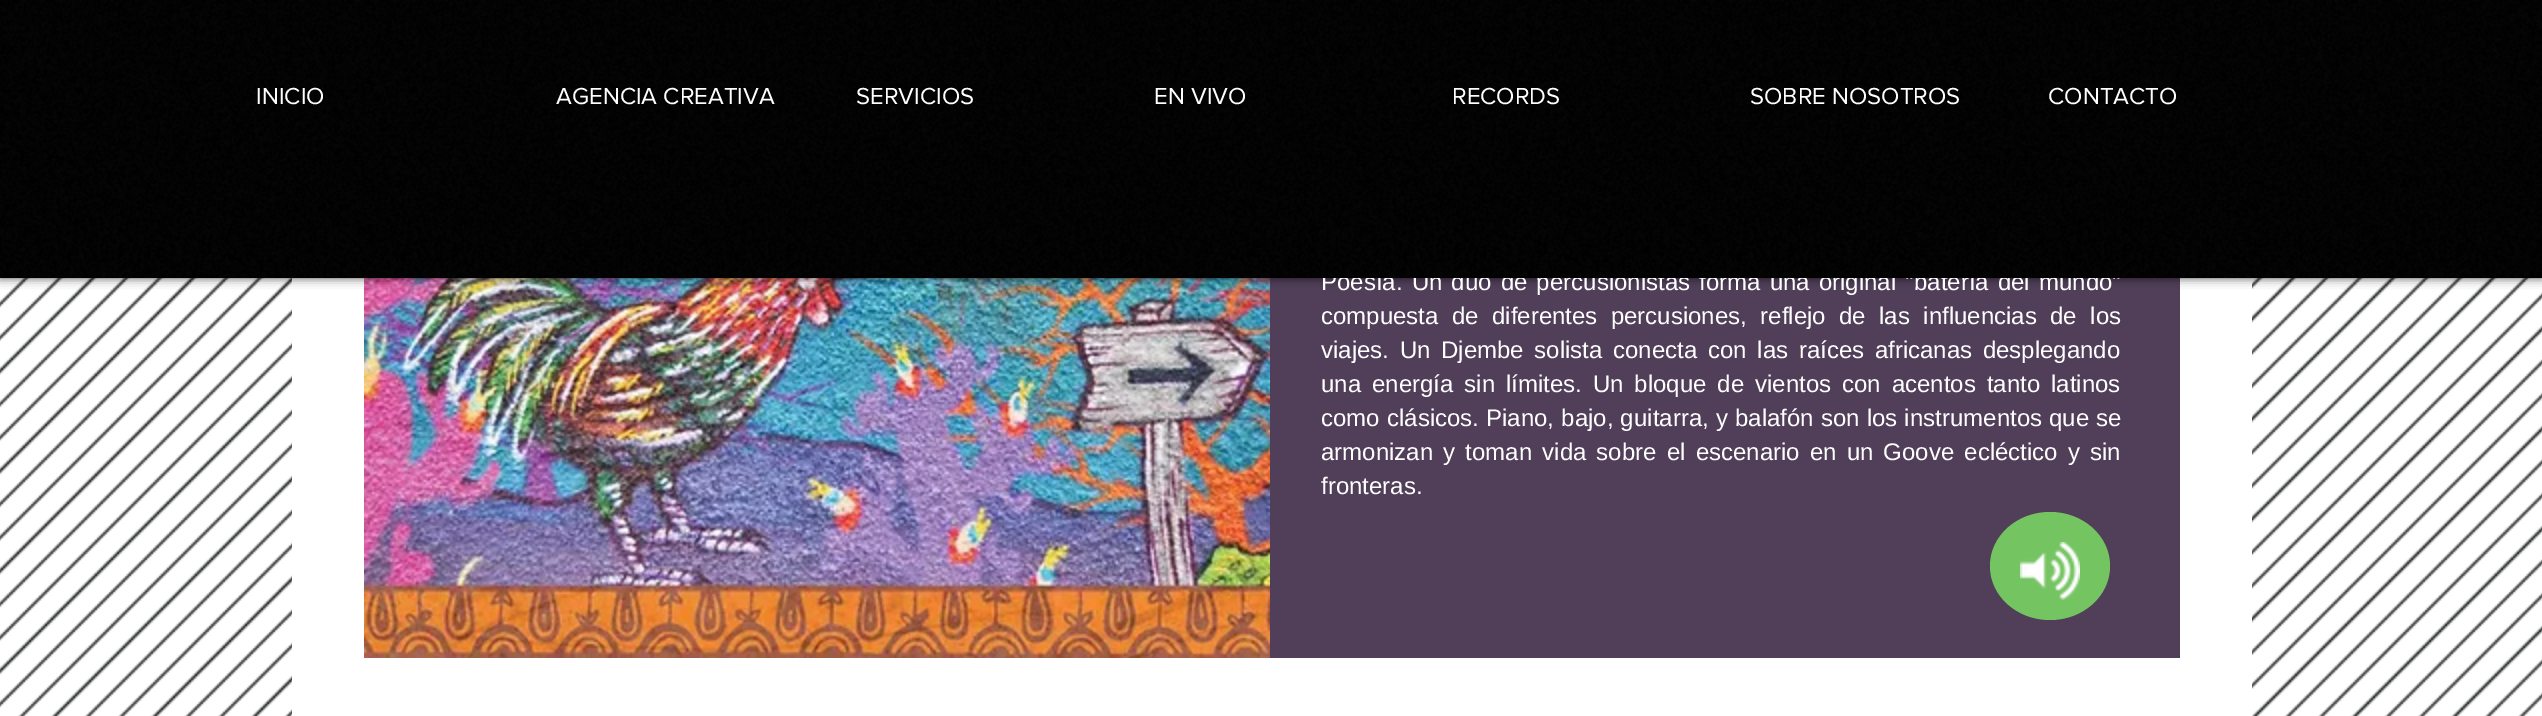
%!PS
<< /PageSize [2542 716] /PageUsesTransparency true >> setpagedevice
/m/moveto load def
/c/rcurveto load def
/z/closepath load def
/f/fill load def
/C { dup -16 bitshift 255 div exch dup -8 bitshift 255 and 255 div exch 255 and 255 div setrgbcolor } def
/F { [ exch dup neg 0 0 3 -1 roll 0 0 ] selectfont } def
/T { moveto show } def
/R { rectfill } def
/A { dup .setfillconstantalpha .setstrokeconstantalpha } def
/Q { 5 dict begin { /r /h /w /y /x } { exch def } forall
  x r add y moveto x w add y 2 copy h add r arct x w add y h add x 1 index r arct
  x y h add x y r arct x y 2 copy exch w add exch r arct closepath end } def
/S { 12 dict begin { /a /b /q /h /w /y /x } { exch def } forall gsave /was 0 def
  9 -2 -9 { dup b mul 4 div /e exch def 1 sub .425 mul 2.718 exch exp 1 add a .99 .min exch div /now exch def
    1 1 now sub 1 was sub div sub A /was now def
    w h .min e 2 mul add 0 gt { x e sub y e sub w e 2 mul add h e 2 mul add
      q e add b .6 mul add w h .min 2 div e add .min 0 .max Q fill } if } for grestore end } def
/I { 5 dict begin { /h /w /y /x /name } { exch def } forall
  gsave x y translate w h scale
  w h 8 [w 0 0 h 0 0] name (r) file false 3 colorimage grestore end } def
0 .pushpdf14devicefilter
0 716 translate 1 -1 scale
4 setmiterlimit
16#FFFFFF C
0 0 2542 716 R
(4.rgb) 0 278 2542 438 I
292 278 1960 438 R
(2.rgb) 364 278 906 380 I
16#513F59 C
1270 278 910 380 R
16#000000 C
0 0 2542 278 0 5 .7 S
/LiberationSans-Regular 24 F
16#FFFFFF C
1321 290 m 2.5 0 32 (Poesía. Un dúo de percusionistas forma una original "batería del mundo") widthshow
16#000000 C
0 0 2542 278 R
(1.rgb) 0 0 2542 278 I
/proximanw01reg-Regular 24 F
16#FFFFFF C
(INICIO) 256 104 T
(AGENCIA CREATIVA) 556 104 T
(SERVICIOS) 856 104 T
(EN VIVO) 1154 104 T
(RECORDS) 1452 104 T
(SOBRE NOSOTROS) 1750 104 T
(CONTACTO) 2048 104 T
/LiberationSans-Regular 24 F
1321 324 m 6.75 0 32 (compuesta de diferentes percusiones, reflejo de las influencias de los) widthshow
1321 358 m 4 0 32 (viajes. Un Djembe solista conecta con las raíces africanas desplegando) widthshow
1321 392 m 4.25 0 32 (una energía sin límites. Un bloque de vientos con acentos tanto latinos) widthshow
1321 426 m .5 0 32 (como clásicos. Piano, bajo, guitarra, y balafón son los instrumentos que se) widthshow
1321 460 m 3.5 0 32 (armonizan y toman vida sobre el escenario en un Goove ecléctico y sin) widthshow
(fronteras.) 1321 494 T
16#75C462 C
2050 512 m 33 0 60 24 60 54 c 0 30 -27 54 -60 54 c -33 0 -60 -24 -60 -54 c 0 -30 27 -54 60 -54 c z f
(3.rgb) 2020 542 60 58 I
.poppdf14devicefilter showpage
